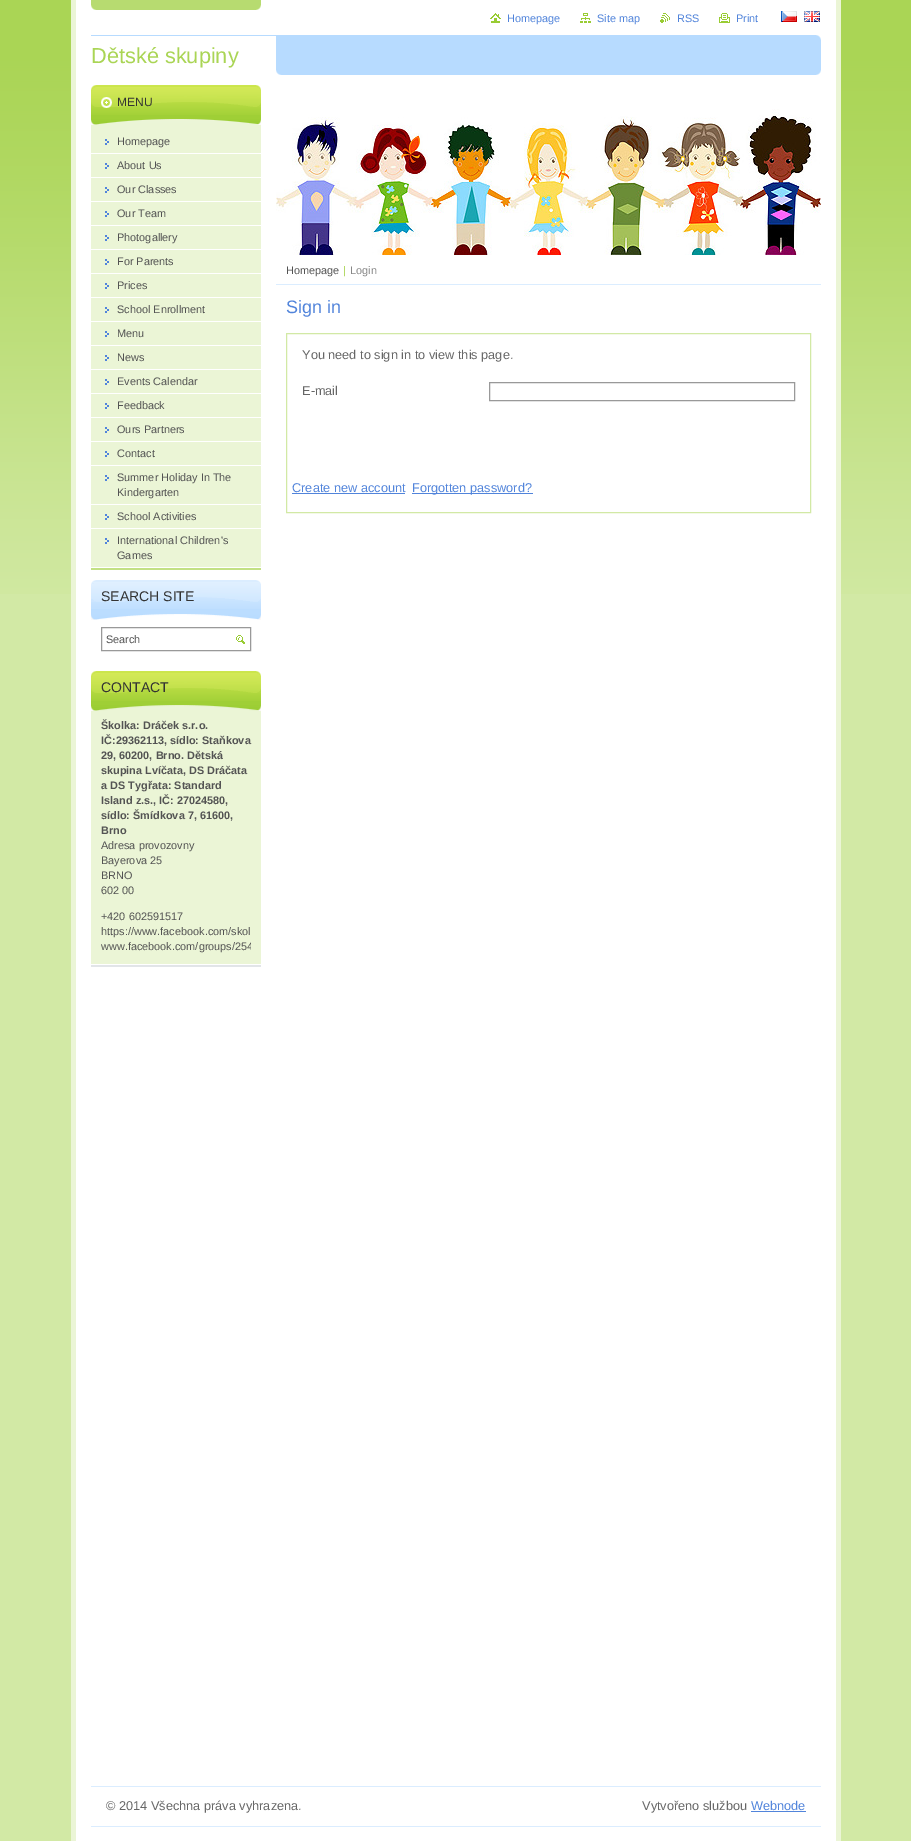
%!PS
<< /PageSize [911 1841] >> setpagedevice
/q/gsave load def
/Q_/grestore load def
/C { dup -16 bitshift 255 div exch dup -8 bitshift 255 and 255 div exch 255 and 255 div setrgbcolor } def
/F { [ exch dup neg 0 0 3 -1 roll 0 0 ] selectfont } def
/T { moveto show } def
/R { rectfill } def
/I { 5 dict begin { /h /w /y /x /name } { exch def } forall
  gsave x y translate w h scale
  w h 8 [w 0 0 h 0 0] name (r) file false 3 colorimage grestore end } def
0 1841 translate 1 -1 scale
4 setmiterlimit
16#D2E9A5 C
0 0 911 1841 R
(1.rgb) 0 0 911 594 I
16#FFFFFF C
76 0 760 1841 R
(2.rgb) 91 0 170 10 I
16#EBF5D6 C
836 0 5 1841 R
71 0 5 1841 R
(3.rgb) 490 13 11 10 I
/LiberationSans-Regular 10.9 F
16#5184DB C
(Homepage) 507 22 T
(4.rgb) 580 13 11 10 I
(Site map) 597 22 T
(5.rgb) 660 13 10 10 I
(RSS) 677 22 T
(6.rgb) 719 13 11 10 I
(Print) 736 22 T
(7.rgb) 781 11 16 11 I
(8.rgb) 804 11 16 11 I
(9.rgb) 91 35 730 6 I
/LiberationSans-Regular 21.75 F
16#AAD555 C
(Dětské skupiny) 91 63 T
16#B7DBFF C
276 41 545 29 R
(10.rgb) 276 70 545 5 I
16#C2E084 C
91 568 170 2 R
16#EBF5D6 C
91 125 170 442 R
16#9FCF36 C
91 115 170 4 R
(11.rgb) 91 85 170 30 I
(12.rgb) 91 119 170 6 I
/LiberationSans-Regular 12 F
16#333333 C
(MENU) 117 106 T
(13.rgb) 105 139 4 6 I
16#FFFFFF C
91 153 170 1 R
/LiberationSans-Regular 10.9 F
16#535353 C
(Homepage) 117 145 T
(13.rgb) 105 163 4 6 I
16#FFFFFF C
91 177 170 1 R
16#535353 C
(About Us) 117 169 T
(13.rgb) 105 187 4 6 I
16#FFFFFF C
91 201 170 1 R
16#535353 C
(Our Classes) 117 193 T
(13.rgb) 105 211 4 6 I
16#FFFFFF C
91 225 170 1 R
16#535353 C
(Our Team) 117 217 T
(13.rgb) 105 235 4 6 I
16#FFFFFF C
91 249 170 1 R
16#535353 C
(Photogallery) 117 241 T
(13.rgb) 105 259 4 6 I
16#FFFFFF C
91 273 170 1 R
16#535353 C
(For Parents) 117 265 T
(13.rgb) 105 283 4 6 I
16#FFFFFF C
91 297 170 1 R
16#535353 C
(Prices) 117 289 T
(13.rgb) 105 307 4 6 I
16#FFFFFF C
91 321 170 1 R
16#535353 C
(School Enrollment) 117 313 T
(13.rgb) 105 331 4 6 I
16#FFFFFF C
91 345 170 1 R
16#535353 C
(Menu) 117 337 T
(13.rgb) 105 355 4 6 I
16#FFFFFF C
91 369 170 1 R
16#535353 C
(News) 117 361 T
(13.rgb) 105 379 4 6 I
16#FFFFFF C
91 393 170 1 R
16#535353 C
(Events Calendar) 117 385 T
(13.rgb) 105 403 4 6 I
16#FFFFFF C
91 417 170 1 R
16#535353 C
(Feedback) 117 409 T
(13.rgb) 105 427 4 6 I
16#FFFFFF C
91 441 170 1 R
16#535353 C
(Ours Partners) 117 433 T
(13.rgb) 105 451 4 6 I
16#FFFFFF C
91 465 170 1 R
16#535353 C
(Contact) 117 457 T
(13.rgb) 105 475 4 6 I
16#FFFFFF C
91 504 170 1 R
16#535353 C
(Summer Holiday In The) 117 481 T
(Kindergarten) 117 496 T
(13.rgb) 105 514 4 6 I
16#FFFFFF C
91 528 170 1 R
16#535353 C
(School Activities) 117 520 T
(13.rgb) 105 538 4 6 I
(International Children's) 117 544 T
(Games) 117 559 T
16#BBDDFF C
91 609 170 6 R
(14.rgb) 91 580 170 29 I
(15.rgb) 91 614 170 6 I
/LiberationSans-Regular 14 F
16#333333 C
(SEARCH SITE) 101 601 T
16#999999 C
101.5 627.5 149 23 rectstroke
/LiberationSans-Regular 10.9 F
16#535353 C
(Search) 106 643 T
(16.rgb) 236 635 9 9 I
16#E2E5E8 C
91 965 170 2 R
16#EBF5D6 C
91 711 170 253 R
16#9FCF36 C
91 701 170 5 R
(17.rgb) 91 671 170 30 I
(18.rgb) 91 705 170 6 I
/LiberationSans-Regular 14 F
16#333333 C
(CONTACT) 101 692 T
/LiberationSans-Bold 10.9 F
16#535353 C
(Školka: Dráček s.r.o.) 101 729 T
(IČ:29362113, sídlo: Staňkova) 101 744 T
(29, 60200, Brno. Dětská) 101 759 T
(skupina Lvíčata, DS Dráčata) 101 774 T
(a DS Tygřata: Standard) 101 789 T
(Island z.s., IČ: 27024580,) 101 804 T
(sídlo: Šmídkova 7, 61600,) 101 819 T
(Brno) 101 834 T
/LiberationSans-Regular 10.9 F
(Adresa provozovny) 101 849 T
(Bayerova 25) 101 864 T
(BRNO) 101 879 T
(602 00) 101 894 T
(+420 602591517) 101 920 T
(https://www.facebook.com/skol) 101 935 T
q
101 718 150 236 rectclip
(www.facebook.com/groups/254) 101 950 T
Q_
(19.rgb) 276 109 545 146 I
16#DBEDFF C
276 284 545 1 R
16#535353 C
(Homepage) 286 274 T
16#99CC33 C
(|) 343 274 T
16#878787 C
(Login) 350 274 T
/LiberationSans-Regular 18 F
16#5184DB C
(Sign in) 286 313 T
16#D2E9A5 C
286.5 333.5 524 179 rectstroke
/LiberationSans-Regular 12.75 F
16#666666 C
(You need to sign in to view this page.) 302 359 T
(E-mail) 302 395 T
16#999999 C
489.5 382.5 305 18 rectstroke
16#5184DB C
(Create new account) 292 492 T
292 493 113 1 R
412 493 121 1 R
(Forgotten password?) 412 492 T
16#DBEDFF C
91 1786 730 1 R
91 1826 730 1 R
16#666666 C
(© 2014 Všechna práva vyhrazena.) 106 1810 T
(Vytvořeno službou) 642 1810 T
16#5184DB C
(Webnode) 751 1810 T
751 1811 55 1 R
showpage
